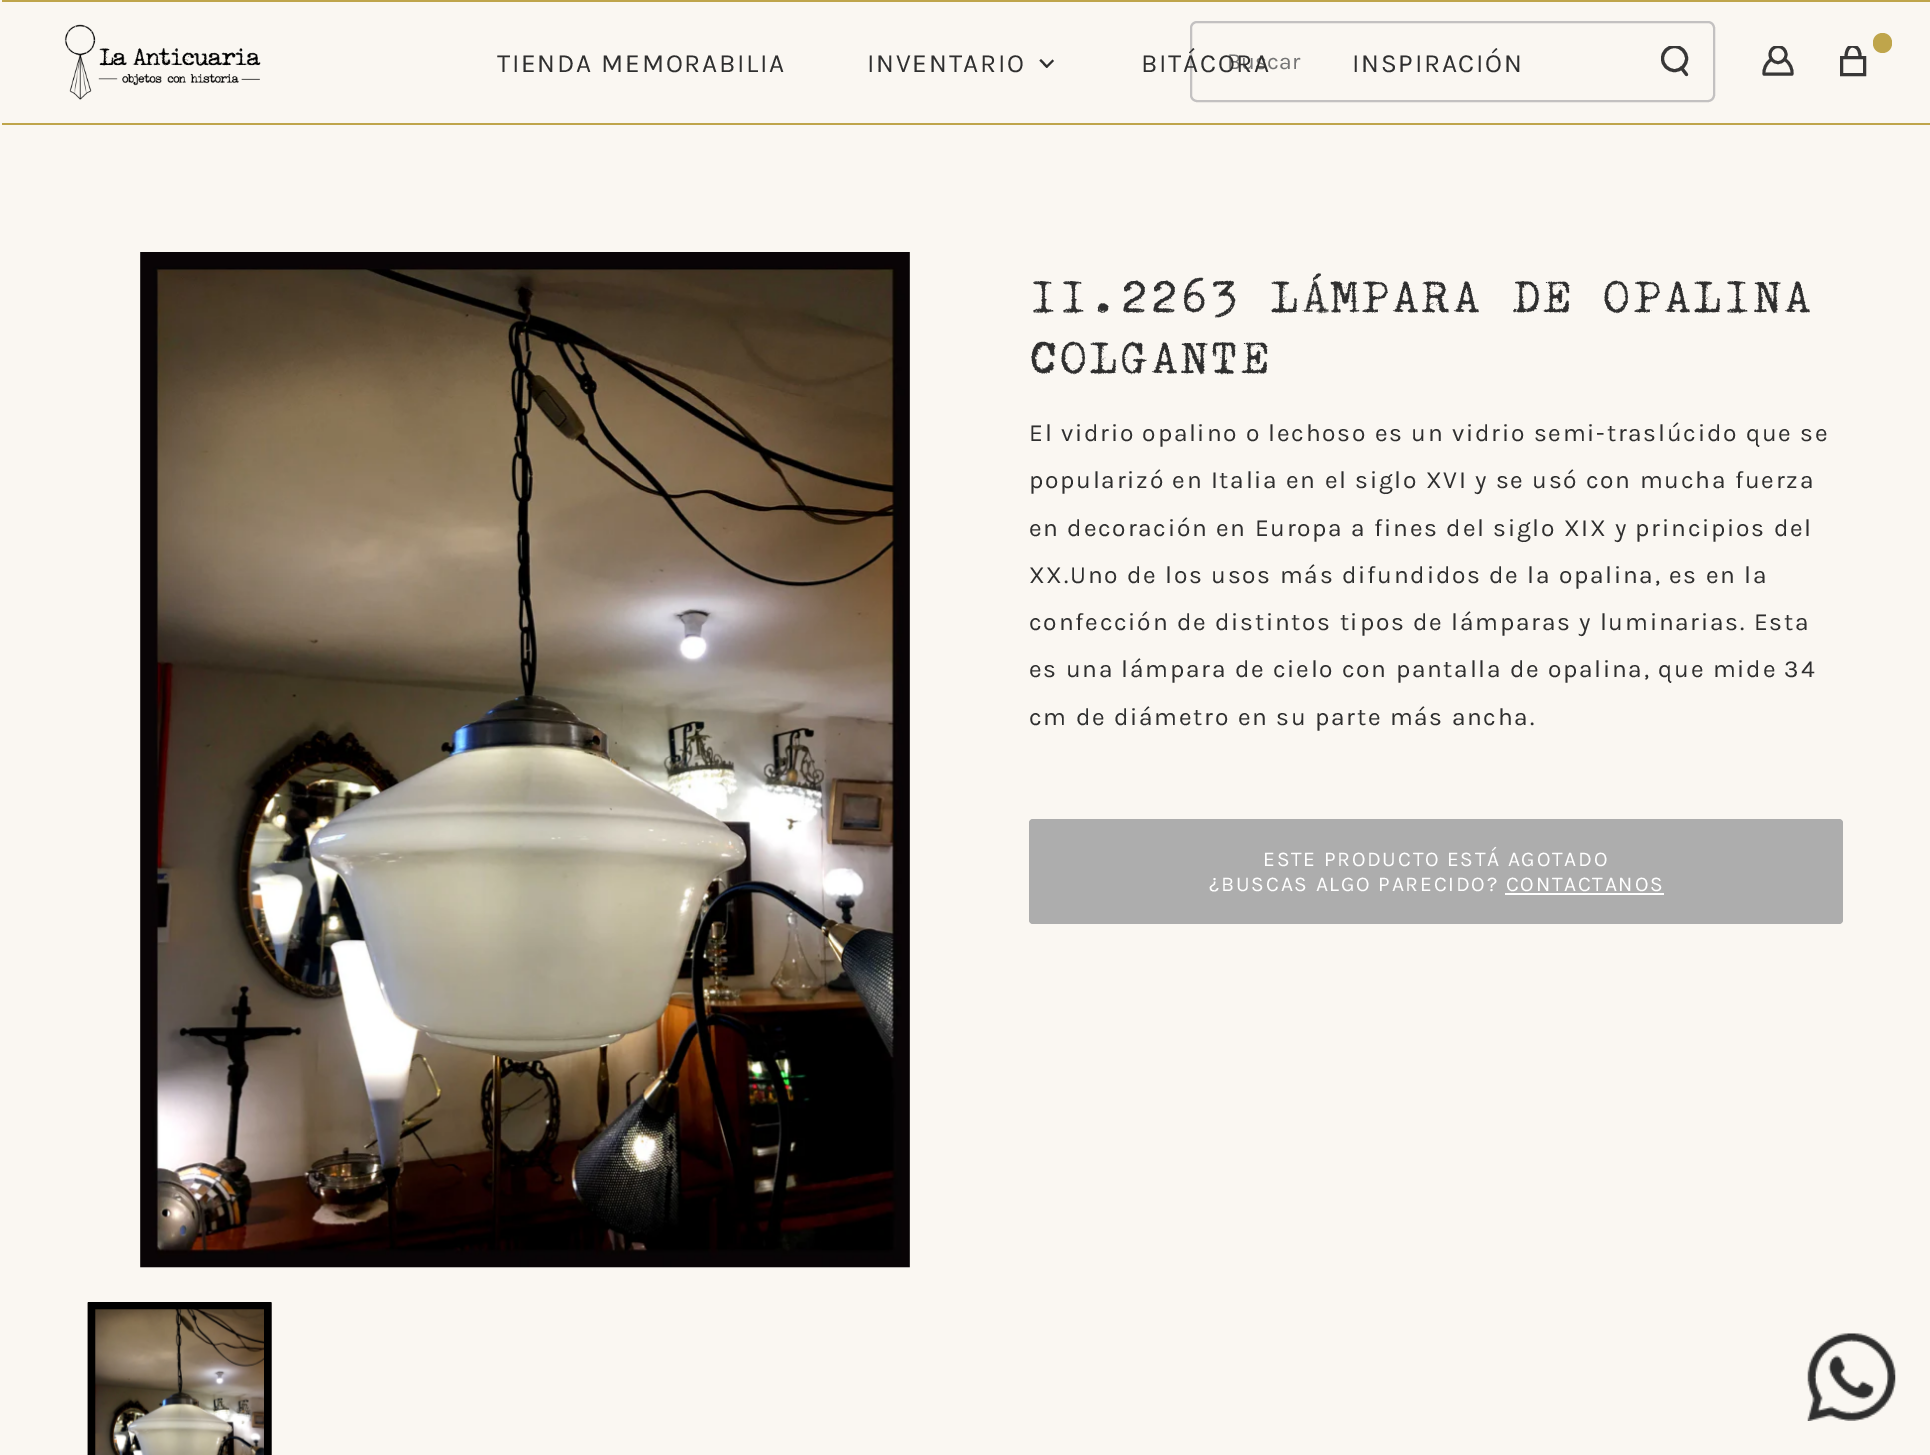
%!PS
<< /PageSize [1930 1455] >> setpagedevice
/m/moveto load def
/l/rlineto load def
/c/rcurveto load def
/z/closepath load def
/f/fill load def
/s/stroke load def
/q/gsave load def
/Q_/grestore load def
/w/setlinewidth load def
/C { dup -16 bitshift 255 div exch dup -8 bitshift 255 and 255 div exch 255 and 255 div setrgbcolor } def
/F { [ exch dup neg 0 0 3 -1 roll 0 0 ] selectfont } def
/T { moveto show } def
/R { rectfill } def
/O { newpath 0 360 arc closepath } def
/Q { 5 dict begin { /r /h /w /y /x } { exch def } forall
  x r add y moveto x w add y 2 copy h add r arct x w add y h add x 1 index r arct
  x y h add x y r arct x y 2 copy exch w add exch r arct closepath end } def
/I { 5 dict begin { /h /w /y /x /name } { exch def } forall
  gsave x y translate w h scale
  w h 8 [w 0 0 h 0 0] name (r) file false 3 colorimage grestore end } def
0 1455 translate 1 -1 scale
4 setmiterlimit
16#FAF7F2 C
0 0 1930 1455 R
16#BFA54B C
2 0 1928 2 R
(1.rgb) 64 24 197 76 I
/Karla-Regular 26.25 F
16#2F2F2F C
497 72 m 1.75 0 (TIENDA MEMORABILIA) ashow
867 72 m 1.75 0 (INVENTARIO) ashow
1052.5 59.5 m 1.5 1.5 l -7 7 l -1.5 -1.5 l z f
1041 59 m 7 7.5 l -1.5 1.5 l -7 -7.5 l z f
16#C3C1C1 C
2 w
1191 22 523 79 6 Q s
/Karla-Regular 23 F
16#757575 C
(Buscar) 1227 69 T
/Karla-Regular 26.25 F
16#2F2F2F C
1141 72 m 1.75 0 (BITÁCORA) ashow
1352 72 m 1.75 0 (INSPIRACIÓN) ashow
q
1661 46 28 31 rectclip
16#383737 C
3.1 w
1674.5 58.5 12 O s
Q_
16#383737 C
3.1 w
1 setlinecap
1686.5 74.5 m -5 -6.5 l s
q
1762 46 32 31 rectclip
2.9 w
0 setlinecap
1778 54.5 8 O s
Q_
2.9 w
1 setlinejoin
1770 60.5 m -4 3 -6.5 8.5 -6 13.5 c 28 0 l .5 -5 -2 -10.5 -6 -13.5 c s
16#BFA54B C
1873 33 19 20 9.5 Q f
16#383737 C
3 w
0 setlinecap
0 setlinejoin
1841.5 57.5 23 17 rectstroke
q
1839 46 27 31 rectclip
3.1 w
1 setlinecap
1 setlinejoin
1846 57 m 0 0 0 -11.5 7 -11 c 1 .5 7 .5 7 11 c s
Q_
16#BFA54B C
2 123 1928 2 R
(2.rgb) 140 252 770 1016 I
(3.rgb) 87 1302 185 153 I
16#000000 C
7 w
91.5 1305.5 176 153 rectstroke
/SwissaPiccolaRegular-Regular 43.75 F
16#2F2F2F C
1029 312 m 1.75 0 (II.2263 LÁMPARA DE OPALINA) ashow
1029 373 m 1.75 0 (COLGANTE) ashow
/Karla-Regular 24.5 F
1029 441 m 1.75 0 (El vidrio opalino o lechoso es un vidrio semi-traslúcido que se) ashow
1029 488 m 1.75 0 (popularizó en Italia en el siglo XVI y se usó con mucha fuerza) ashow
1029 536 m 1.75 0 (en decoración en Europa a fines del siglo XIX y principios del) ashow
1029 583 m 1.75 0 (XX.Uno de los usos más difundidos de la opalina, es en la) ashow
1029 630 m 1.75 0 (confección de distintos tipos de lámparas y luminarias. Esta) ashow
1029 677 m 1.75 0 (es una lámpara de cielo con pantalla de opalina, que mide 34) ashow
1029 725 m 1.75 0 (cm de diámetro en su parte más ancha.) ashow
16#ADADAD C
1029 819 814 105 4 Q f
/Karla-Regular 21 F
16#FFFFFF C
1263 866 m 1.75 0 (ESTE PRODUCTO ESTÁ AGOTADO) ashow
1209 891 m 1.75 0 (¿BUSCAS ALGO PARECIDO? CONTACTANOS) ashow
1505 893 159 2 R
(4.rgb) 1807 1333 89 88 I
showpage
